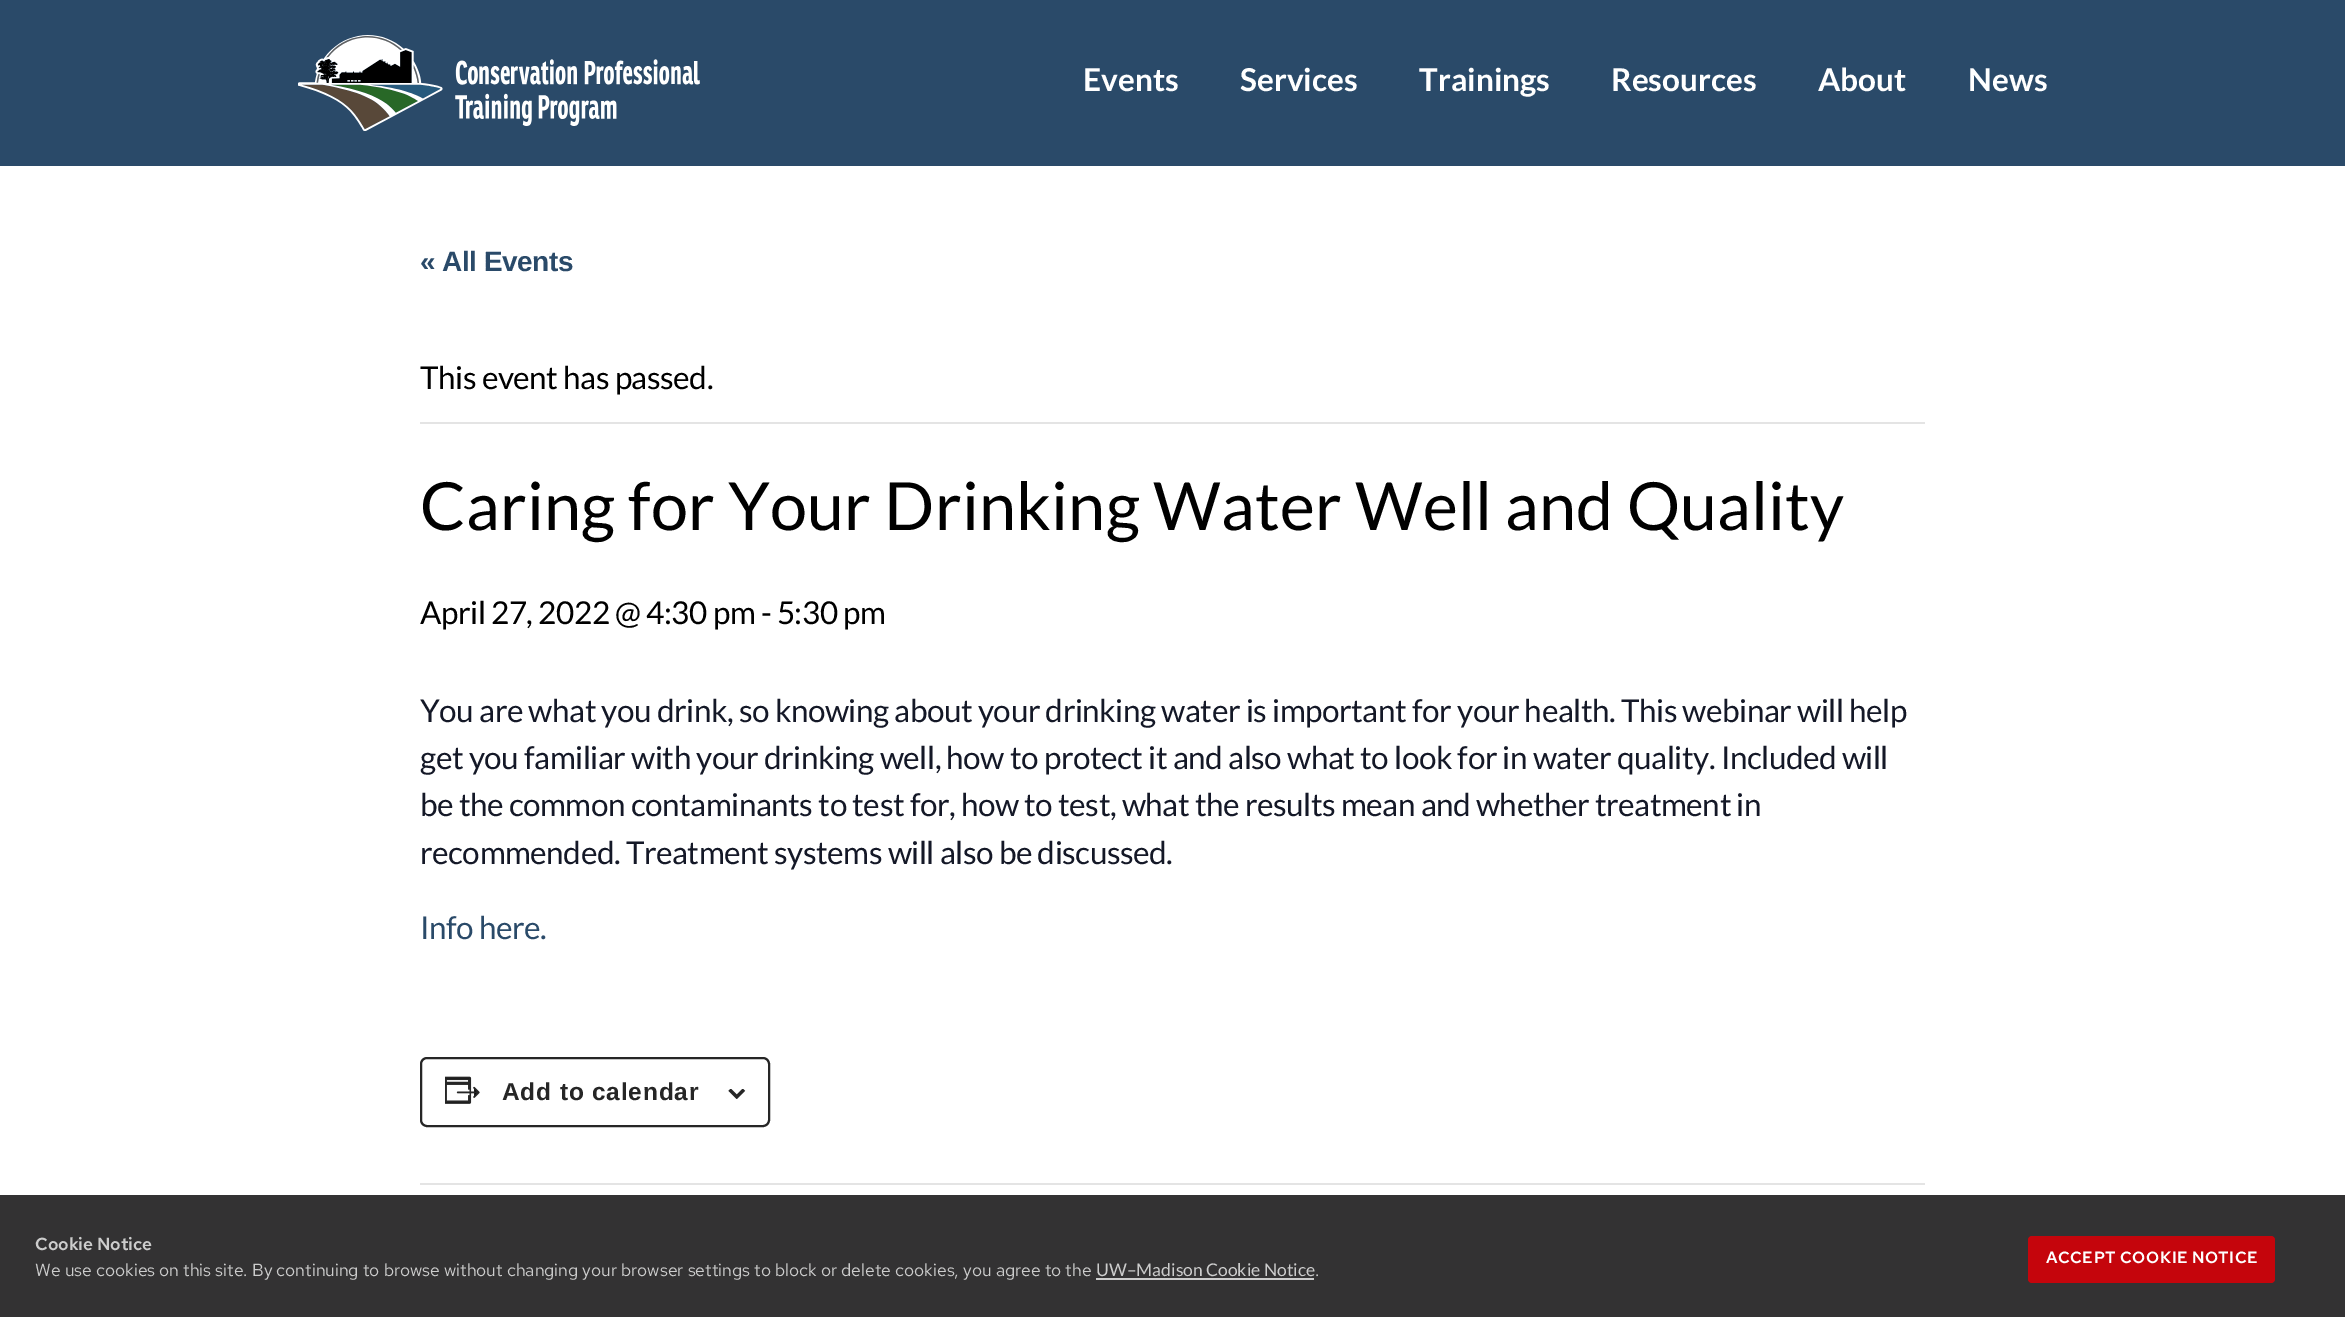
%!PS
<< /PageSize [2345 1317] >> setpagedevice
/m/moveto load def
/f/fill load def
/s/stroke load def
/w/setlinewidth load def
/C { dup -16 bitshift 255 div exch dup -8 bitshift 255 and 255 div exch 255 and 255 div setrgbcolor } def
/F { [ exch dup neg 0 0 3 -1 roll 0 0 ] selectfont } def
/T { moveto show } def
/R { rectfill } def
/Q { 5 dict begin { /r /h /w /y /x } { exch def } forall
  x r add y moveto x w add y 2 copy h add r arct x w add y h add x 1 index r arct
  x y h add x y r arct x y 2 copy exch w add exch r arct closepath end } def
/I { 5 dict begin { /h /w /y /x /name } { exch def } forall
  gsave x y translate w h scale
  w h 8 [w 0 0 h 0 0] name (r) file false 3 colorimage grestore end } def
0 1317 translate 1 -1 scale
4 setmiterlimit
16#FFFFFF C
0 0 2345 1317 R
16#333233 C
0 1195 2345 122 R
16#2A4A69 C
0 0 2345 166 R
(1.rgb) 298 35 402 96 I
/Lato-Bold 31.5 F
16#FFFFFF C
(Events) 1083 91 T
(Services) 1240 91 T
(Trainings) 1419 91 T
(Resources) 1611 91 T
(About) 1818 91 T
(News) 1968 91 T
/LiberationSans-Bold 28 F
16#2A4A69 C
420 271 m -.47 0 (« All Events) ashow
16#E4E4E4 C
420 422 1505 2 R
/Lato-Regular 31.5 F
16#000000 C
420 389 m -.47 0 (This event has passed.) ashow
/Lato-Regular 66.5 F
420 530 m .2 0 (Caring for Your Drinking Water Well and Quality) ashow
/Lato-Regular 31.5 F
420 624 m -.47 0 (April 27, 2022 @ 4:30 pm - 5:30 pm) ashow
16#141827 C
420 722 m -.47 0 (You are what you drink, so knowing about your drinking water is important for your health. This webinar will help) ashow
420 769 m -.47 0 (get you familiar with your drinking well, how to protect it and also what to look for in water quality. Included will) ashow
420 816 m -.47 0 (be the common contaminants to test for, how to test, what the results mean and whether treatment in) ashow
420 864 m -.47 0 (recommended. Treatment systems will also be discussed.) ashow
16#2A4A69 C
420 939 m -.47 0 (Info here.) ashow
16#262626 C
2 w
421 1058 348 68 6 Q s
(2.rgb) 445 1076 35 28 I
/LiberationSans-Bold 24.5 F
502 1100 m .8 0 (Add to calendar) ashow
(3.rgb) 728 1089 18 10 I
16#E4E4E4 C
420 1183 1505 2 R
/RedHatText-SemiBold 17.5 F
16#CCCCCC C
(Cookie Notice) 35 1250 T
/RedHatText-Regular 17.5 F
(We use cookies on this site. By continuing to browse without changing your browser settings to block or delete cookies, you agree to the) 35 1276 T
/Lato-Regular 17.5 F
(UW–Madison Cookie Notice) 1096 1276 T
1096 1278 218 2 R
/RedHatText-Regular 17.5 F
(.) 1315 1276 T
16#C5050C C
2028 1236 247 47 4 Q f
/RedHatText-SemiBold 16.25 F
16#FFFFFF C
2046 1263 m .5 0 (ACCEPT COOKIE NOTICE) ashow
showpage
